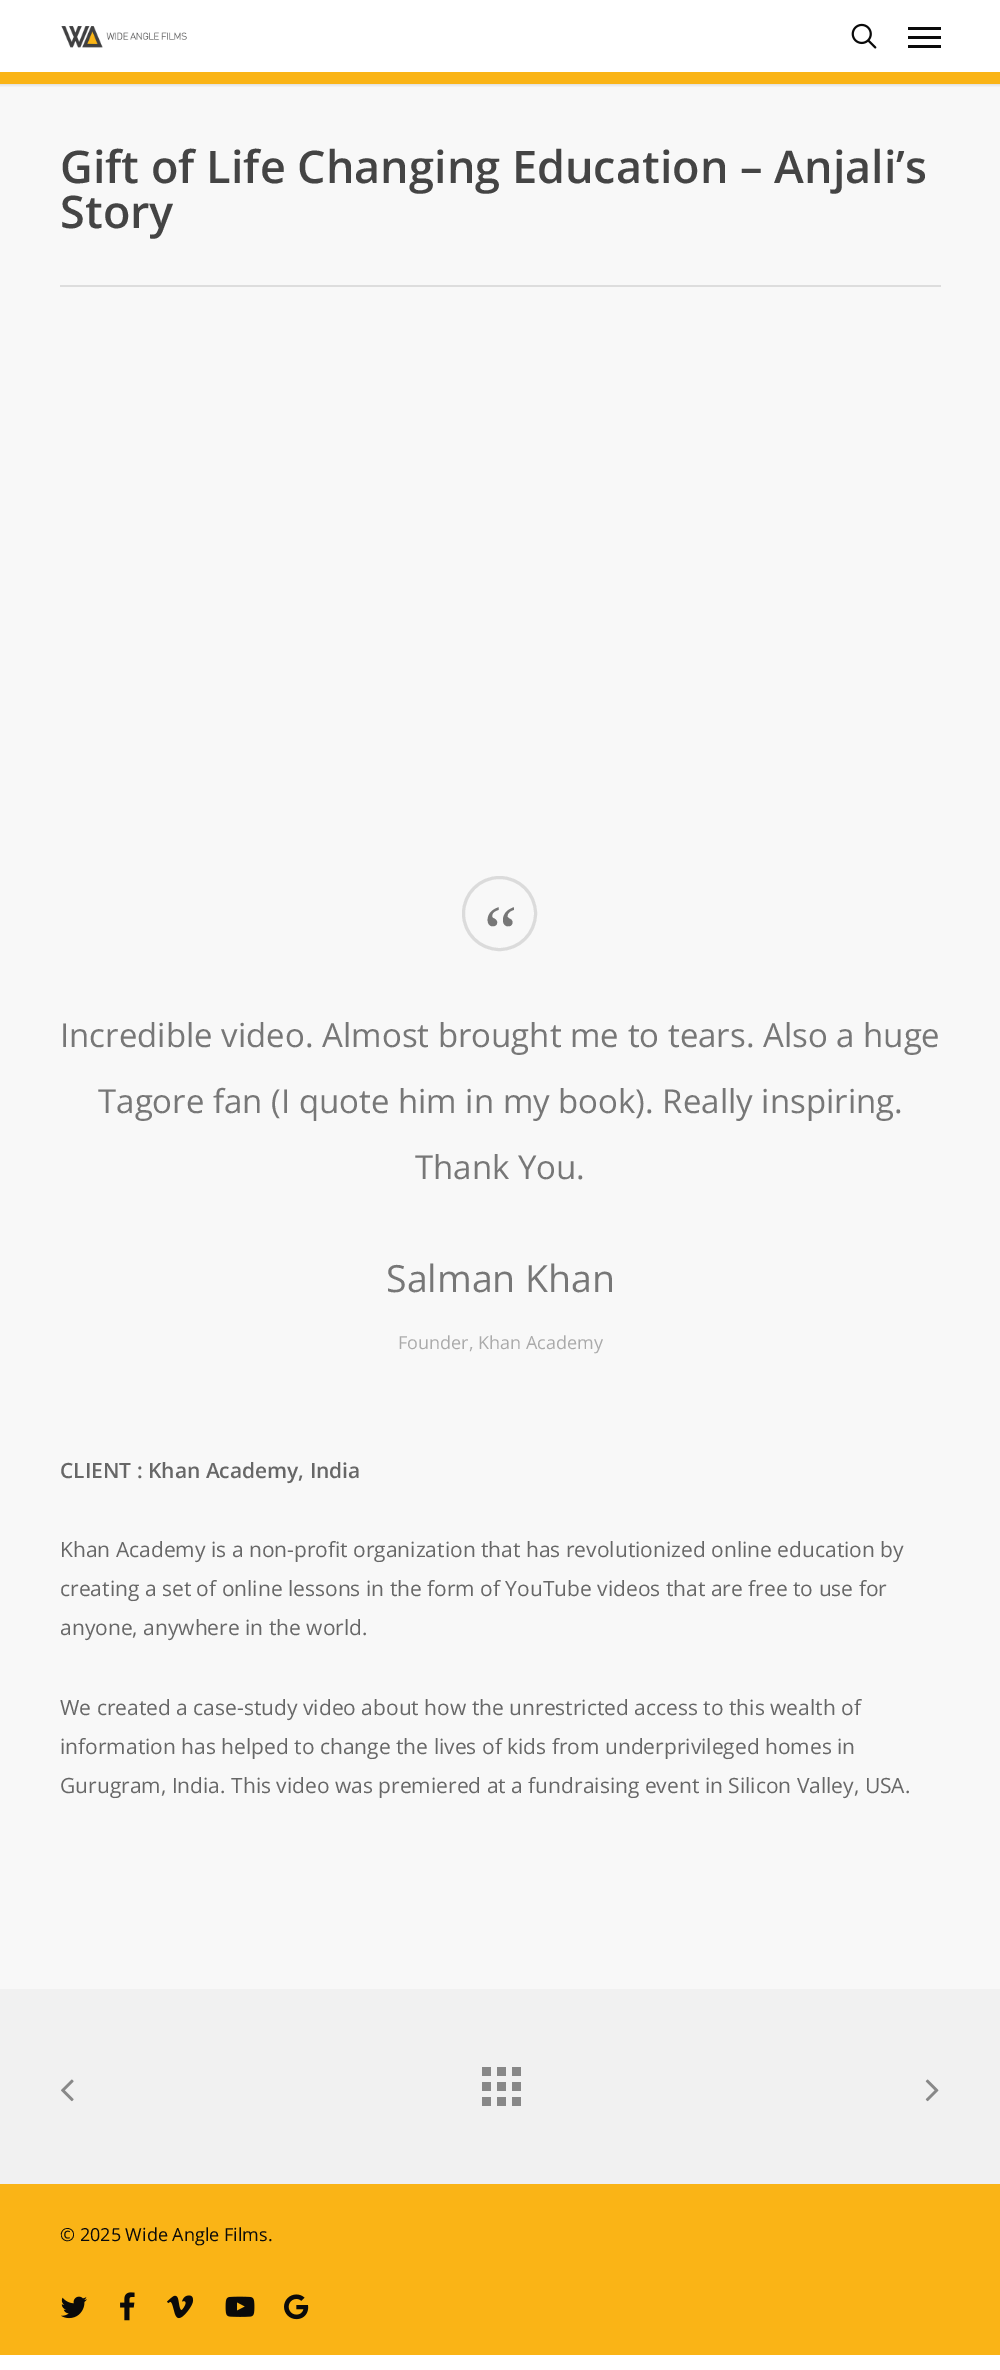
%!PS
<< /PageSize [1000 2370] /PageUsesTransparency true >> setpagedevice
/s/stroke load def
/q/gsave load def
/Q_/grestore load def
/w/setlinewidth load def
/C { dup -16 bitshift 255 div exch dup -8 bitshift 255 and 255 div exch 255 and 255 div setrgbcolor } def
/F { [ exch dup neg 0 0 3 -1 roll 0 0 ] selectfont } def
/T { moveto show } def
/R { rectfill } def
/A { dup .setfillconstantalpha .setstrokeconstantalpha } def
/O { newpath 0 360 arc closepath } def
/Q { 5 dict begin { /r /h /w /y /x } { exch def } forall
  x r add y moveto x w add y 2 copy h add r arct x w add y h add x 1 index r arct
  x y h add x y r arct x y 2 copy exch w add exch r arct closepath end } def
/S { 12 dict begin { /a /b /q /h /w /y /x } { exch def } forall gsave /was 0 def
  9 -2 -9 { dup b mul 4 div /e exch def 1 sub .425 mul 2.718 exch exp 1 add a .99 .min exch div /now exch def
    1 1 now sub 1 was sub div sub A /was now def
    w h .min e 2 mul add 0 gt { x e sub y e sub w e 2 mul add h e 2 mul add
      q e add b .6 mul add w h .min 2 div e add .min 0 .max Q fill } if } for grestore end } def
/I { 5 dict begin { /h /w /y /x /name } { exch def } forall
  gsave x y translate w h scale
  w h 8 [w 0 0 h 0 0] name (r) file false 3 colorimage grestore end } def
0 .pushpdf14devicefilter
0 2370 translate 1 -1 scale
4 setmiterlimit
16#FFFFFF C
0 0 1000 2370 R
16#F8F8F8 C
0 84 1000 1905 R
q
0 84 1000 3 rectclip
16#000000 C
0 0 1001 84 0 2 .22 S
Q_
16#FAB416 C
0 72 1000 12 R
(1.rgb) 61 26 126 22 I
(2.rgb) 851 23 26 26 I
16#0A0A0A C
908 27 33 3 R
908 45 33 3 R
908 36 33 3 R
16#DDDDDD C
60 285 881 2 R
/OpenSans-SemiBold 45 F
16#444444 C
(Gift of Life Changing Education – Anjali’s) 60 183 T
(Story) 60 228 T
16#DBDBDB C
3 w
499.5 913.5 36 O s
/LiberationSerif-Regular 75 F
16#777777 C
(“) 484 957 T
/OpenSans-Regular 33 F
(Incredible video. Almost brought me to tears. Also a huge) 60 1047 T
(Tagore fan \(I quote him in my book\). Really inspiring.) 98 1113 T
(Thank You.) 415 1179 T
/OpenSans-Regular 37.5 F
(Salman Khan) 386 1292 T
/OpenSans-Regular 18 F
16#AAAAAA C
(Founder, Khan Academy) 398 1349 T
/OpenSans-SemiBold 21 F
16#676767 C
(CLIENT : Khan Academy, India) 60 1478 T
/OpenSans-Regular 21 F
(Khan Academy is a non-profit organization that has revolutionized online education by) 60 1557 T
(creating a set of online lessons in the form of YouTube videos that are free to use for) 60 1596 T
(anyone, anywhere in the world.) 60 1635 T
(We created a case-study video about how the unrestricted access to this wealth of) 60 1715 T
(information has helped to change the lives of kids from underprivileged homes in) 60 1754 T
(Gurugram, India. This video was premiered at a fundraising event in Silicon Valley, USA.) 60 1793 T
16#F1F1F1 C
0 1989 1000 195 R
16#888888 C
512 2097 9 9 R
497 2097 9 9 R
482 2067 9 9 R
497 2067 9 9 R
512 2067 9 9 R
512 2082 9 9 R
482 2097 9 9 R
482 2082 9 9 R
497 2082 9 9 R
(3.rgb) 61 2079 13 23 I
(4.rgb) 925 2079 14 23 I
16#FAB416 C
0 2184 1000 171 R
/OpenSans-Regular 18 F
16#0A0A0A C
(© 2025 Wide Angle Films.) 60 2241 T
(5.rgb) 61 2296 26 23 I
(6.rgb) 120 2292 15 29 I
(7.rgb) 167 2295 27 24 I
(8.rgb) 225 2296 30 21 I
(9.rgb) 284 2294 25 26 I
.poppdf14devicefilter showpage
